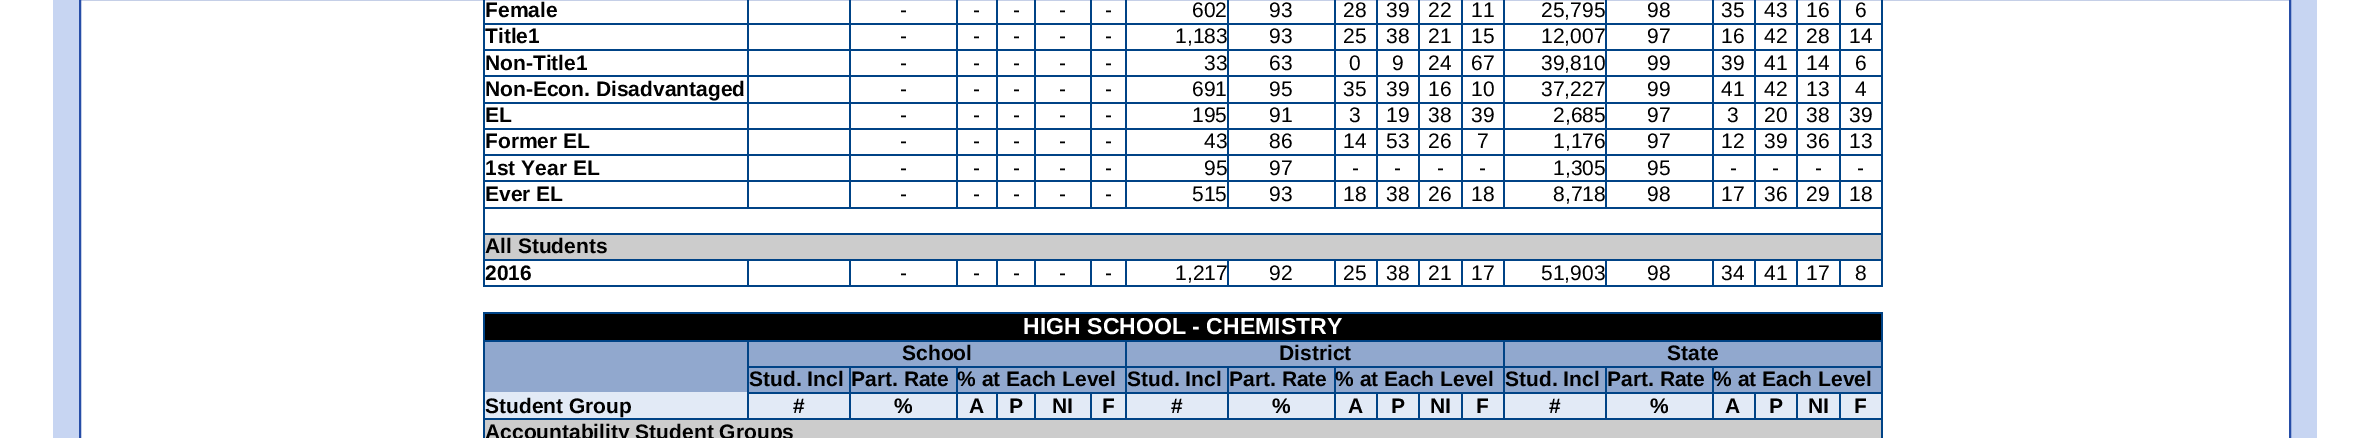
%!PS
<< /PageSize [2368 438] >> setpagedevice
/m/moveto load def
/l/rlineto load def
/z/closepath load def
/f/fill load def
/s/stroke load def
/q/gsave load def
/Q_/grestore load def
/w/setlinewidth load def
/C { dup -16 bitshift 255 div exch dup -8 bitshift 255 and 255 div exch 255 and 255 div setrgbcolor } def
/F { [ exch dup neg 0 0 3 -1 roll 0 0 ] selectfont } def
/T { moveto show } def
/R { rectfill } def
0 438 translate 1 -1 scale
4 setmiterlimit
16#FFFFFF C
0 0 2368 438 R
16#C7D5F2 C
53 0 2264 438 R
16#FFFFFF C
80 -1 m 2210 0 l 0 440 l -2210 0 l z q f Q_
16#264DA7 C
2 w
s
16#004386 C
1881 0 2 287 R
483 285 1400 2 R
483 0 2 287 R
/LiberationSans-Bold 21 F
16#000000 C
(Female) 485 17 T
16#004386 C
1839 23 44 2 R
1839 49 44 2 R
1839 75 44 2 R
1839 102 44 2 R
1839 128 44 2 R
1839 154 44 2 R
1839 180 44 2 R
483 207 1400 2 R
1839 180 2 28 R
1796 180 45 2 R
1839 154 2 28 R
1796 154 45 2 R
1839 128 2 28 R
1796 128 45 2 R
1839 102 2 28 R
1796 102 45 2 R
1839 75 2 28 R
1796 75 45 2 R
1839 49 2 28 R
1796 49 45 2 R
1839 23 2 28 R
1796 23 45 2 R
1796 180 2 28 R
1754 180 43 2 R
1796 154 2 28 R
1754 154 43 2 R
1796 128 2 28 R
1754 128 43 2 R
1796 102 2 28 R
1754 102 43 2 R
1796 75 2 28 R
1754 75 43 2 R
1796 49 2 28 R
1754 49 43 2 R
1796 23 2 28 R
1754 23 43 2 R
1754 180 2 28 R
1712 180 43 2 R
1754 154 2 28 R
1712 154 43 2 R
1754 128 2 28 R
1712 128 43 2 R
1754 102 2 28 R
1712 102 43 2 R
1754 75 2 28 R
1712 75 43 2 R
1754 49 2 28 R
1712 49 43 2 R
1754 23 2 28 R
1712 23 43 2 R
1712 180 2 28 R
1605 180 108 2 R
1712 154 2 28 R
1605 154 108 2 R
1712 128 2 28 R
1605 128 108 2 R
1712 102 2 28 R
1605 102 108 2 R
1712 75 2 28 R
1605 75 108 2 R
1712 49 2 28 R
1605 49 108 2 R
1712 23 2 28 R
1605 23 108 2 R
1605 180 2 28 R
1503 180 104 2 R
1605 154 2 28 R
1503 154 104 2 R
1605 128 2 28 R
1503 128 104 2 R
1605 102 2 28 R
1503 102 104 2 R
1605 75 2 28 R
1503 75 104 2 R
1605 49 2 28 R
1503 49 104 2 R
1605 23 2 28 R
1503 23 104 2 R
1503 180 2 28 R
1461 180 44 2 R
1503 154 2 28 R
1461 154 44 2 R
1503 128 2 28 R
1461 128 44 2 R
1503 102 2 28 R
1461 102 44 2 R
1503 75 2 28 R
1461 75 44 2 R
1503 49 2 28 R
1461 49 44 2 R
1503 23 2 28 R
1461 23 44 2 R
1461 180 2 28 R
1418 180 45 2 R
1461 154 2 28 R
1418 154 45 2 R
1461 128 2 28 R
1418 128 45 2 R
1461 102 2 28 R
1418 102 45 2 R
1461 75 2 28 R
1418 75 45 2 R
1461 49 2 28 R
1418 49 45 2 R
1461 23 2 28 R
1418 23 45 2 R
1418 180 2 28 R
1376 180 43 2 R
1418 154 2 28 R
1376 154 43 2 R
1418 128 2 28 R
1376 128 43 2 R
1418 102 2 28 R
1376 102 43 2 R
1418 75 2 28 R
1376 75 43 2 R
1418 49 2 28 R
1376 49 43 2 R
1418 23 2 28 R
1376 23 43 2 R
1376 180 2 28 R
1334 180 43 2 R
1376 154 2 28 R
1334 154 43 2 R
1376 128 2 28 R
1334 128 43 2 R
1376 102 2 28 R
1334 102 43 2 R
1376 75 2 28 R
1334 75 43 2 R
1376 49 2 28 R
1334 49 43 2 R
1376 23 2 28 R
1334 23 43 2 R
1334 180 2 28 R
1227 180 108 2 R
1334 154 2 28 R
1227 154 108 2 R
1334 128 2 28 R
1227 128 108 2 R
1334 102 2 28 R
1227 102 108 2 R
1334 75 2 28 R
1227 75 108 2 R
1334 49 2 28 R
1227 49 108 2 R
1334 23 2 28 R
1227 23 108 2 R
1227 180 2 28 R
1125 180 104 2 R
1227 154 2 28 R
1125 154 104 2 R
1227 128 2 28 R
1125 128 104 2 R
1227 102 2 28 R
1125 102 104 2 R
1227 75 2 28 R
1125 75 104 2 R
1227 49 2 28 R
1125 49 104 2 R
1227 23 2 28 R
1125 23 104 2 R
1125 180 2 28 R
1090 180 37 2 R
1125 154 2 28 R
1090 154 37 2 R
1125 128 2 28 R
1090 128 37 2 R
1125 102 2 28 R
1090 102 37 2 R
1125 75 2 28 R
1090 75 37 2 R
1125 49 2 28 R
1090 49 37 2 R
1125 23 2 28 R
1090 23 37 2 R
1090 180 2 28 R
1034 180 58 2 R
1090 154 2 28 R
1034 154 58 2 R
1090 128 2 28 R
1034 128 58 2 R
1090 102 2 28 R
1034 102 58 2 R
1090 75 2 28 R
1034 75 58 2 R
1090 49 2 28 R
1034 49 58 2 R
1090 23 2 28 R
1034 23 58 2 R
1034 180 2 28 R
996 180 40 2 R
1034 154 2 28 R
996 154 40 2 R
1034 128 2 28 R
996 128 40 2 R
1034 102 2 28 R
996 102 40 2 R
1034 75 2 28 R
996 75 40 2 R
1034 49 2 28 R
996 49 40 2 R
1034 23 2 28 R
996 23 40 2 R
996 180 2 28 R
956 180 42 2 R
996 154 2 28 R
956 154 42 2 R
996 128 2 28 R
956 128 42 2 R
996 102 2 28 R
956 102 42 2 R
996 75 2 28 R
956 75 42 2 R
996 49 2 28 R
956 49 42 2 R
996 23 2 28 R
956 23 42 2 R
956 180 2 28 R
849 180 108 2 R
956 154 2 28 R
849 154 108 2 R
956 128 2 28 R
849 128 108 2 R
956 102 2 28 R
849 102 108 2 R
956 75 2 28 R
849 75 108 2 R
956 49 2 28 R
849 49 108 2 R
956 23 2 28 R
849 23 108 2 R
849 180 2 28 R
747 180 104 2 R
849 154 2 28 R
747 154 104 2 R
849 128 2 28 R
747 128 104 2 R
849 102 2 28 R
747 102 104 2 R
849 75 2 28 R
747 75 104 2 R
849 49 2 28 R
747 49 104 2 R
849 23 2 28 R
747 23 104 2 R
747 180 2 28 R
483 180 266 2 R
747 154 2 28 R
483 154 266 2 R
747 128 2 28 R
483 128 266 2 R
747 102 2 28 R
483 102 266 2 R
747 75 2 28 R
483 75 266 2 R
747 49 2 28 R
483 49 266 2 R
747 23 2 28 R
483 23 266 2 R
747 0 2 25 R
849 0 2 25 R
/LiberationSans-Regular 21 F
16#000000 C
(-) 900 17 T
16#004386 C
956 0 2 25 R
16#000000 C
(-) 973 17 T
16#004386 C
996 0 2 25 R
16#000000 C
(-) 1013 17 T
16#004386 C
1034 0 2 25 R
16#000000 C
(-) 1059 17 T
16#004386 C
1090 0 2 25 R
16#000000 C
(-) 1105 17 T
16#004386 C
1125 0 2 25 R
16#000000 C
(602) 1192 17 T
16#004386 C
1227 0 2 25 R
16#000000 C
(93) 1269 17 T
16#004386 C
1334 0 2 25 R
16#000000 C
(28) 1343 17 T
16#004386 C
1376 0 2 25 R
16#000000 C
(39) 1386 17 T
16#004386 C
1418 0 2 25 R
16#000000 C
(22) 1428 17 T
16#004386 C
1461 0 2 25 R
16#000000 C
(11) 1471 17 T
16#004386 C
1503 0 2 25 R
16#000000 C
(25,795) 1541 17 T
16#004386 C
1605 0 2 25 R
16#000000 C
(98) 1647 17 T
16#004386 C
1712 0 2 25 R
16#000000 C
(35) 1721 17 T
16#004386 C
1754 0 2 25 R
16#000000 C
(43) 1764 17 T
16#004386 C
1796 0 2 25 R
16#000000 C
(16) 1806 17 T
16#004386 C
1839 0 2 25 R
16#000000 C
(6) 1855 17 T
/LiberationSans-Bold 21 F
(Title1) 485 43 T
/LiberationSans-Regular 21 F
(-) 900 43 T
(-) 973 43 T
(-) 1013 43 T
(-) 1059 43 T
(-) 1105 43 T
(1,183) 1175 43 T
(93) 1269 43 T
(25) 1343 43 T
(38) 1386 43 T
(21) 1428 43 T
(15) 1471 43 T
(12,007) 1541 43 T
(97) 1647 43 T
(16) 1721 43 T
(42) 1764 43 T
(28) 1806 43 T
(14) 1849 43 T
/LiberationSans-Bold 21 F
(Non-Title1) 485 70 T
/LiberationSans-Regular 21 F
(-) 900 70 T
(-) 973 70 T
(-) 1013 70 T
(-) 1059 70 T
(-) 1105 70 T
(33) 1204 70 T
(63) 1269 70 T
(0) 1349 70 T
(9) 1392 70 T
(24) 1428 70 T
(67) 1471 70 T
(39,810) 1541 70 T
(99) 1647 70 T
(39) 1721 70 T
(41) 1764 70 T
(14) 1806 70 T
(6) 1855 70 T
/LiberationSans-Bold 21 F
(Non-Econ. Disadvantaged) 485 96 T
/LiberationSans-Regular 21 F
(-) 900 96 T
(-) 973 96 T
(-) 1013 96 T
(-) 1059 96 T
(-) 1105 96 T
(691) 1192 96 T
(95) 1269 96 T
(35) 1343 96 T
(39) 1386 96 T
(16) 1428 96 T
(10) 1471 96 T
(37,227) 1541 96 T
(99) 1647 96 T
(41) 1721 96 T
(42) 1764 96 T
(13) 1806 96 T
(4) 1855 96 T
/LiberationSans-Bold 21 F
(EL) 485 122 T
/LiberationSans-Regular 21 F
(-) 900 122 T
(-) 973 122 T
(-) 1013 122 T
(-) 1059 122 T
(-) 1105 122 T
(195) 1192 122 T
(91) 1269 122 T
(3) 1349 122 T
(19) 1386 122 T
(38) 1428 122 T
(39) 1471 122 T
(2,685) 1553 122 T
(97) 1647 122 T
(3) 1727 122 T
(20) 1764 122 T
(38) 1806 122 T
(39) 1849 122 T
/LiberationSans-Bold 21 F
(Former EL) 485 148 T
/LiberationSans-Regular 21 F
(-) 900 148 T
(-) 973 148 T
(-) 1013 148 T
(-) 1059 148 T
(-) 1105 148 T
(43) 1204 148 T
(86) 1269 148 T
(14) 1343 148 T
(53) 1386 148 T
(26) 1428 148 T
(7) 1477 148 T
(1,176) 1553 148 T
(97) 1647 148 T
(12) 1721 148 T
(39) 1764 148 T
(36) 1806 148 T
(13) 1849 148 T
/LiberationSans-Bold 21 F
(1st Year EL) 485 175 T
/LiberationSans-Regular 21 F
(-) 900 175 T
(-) 973 175 T
(-) 1013 175 T
(-) 1059 175 T
(-) 1105 175 T
(95) 1204 175 T
(97) 1269 175 T
(-) 1352 175 T
(-) 1394 175 T
(-) 1437 175 T
(-) 1479 175 T
(1,305) 1553 175 T
(95) 1647 175 T
(-) 1730 175 T
(-) 1772 175 T
(-) 1815 175 T
(-) 1857 175 T
/LiberationSans-Bold 21 F
(Ever EL) 485 201 T
/LiberationSans-Regular 21 F
(-) 900 201 T
(-) 973 201 T
(-) 1013 201 T
(-) 1059 201 T
(-) 1105 201 T
(515) 1192 201 T
(93) 1269 201 T
(18) 1343 201 T
(38) 1386 201 T
(26) 1428 201 T
(18) 1471 201 T
(8,718) 1553 201 T
(98) 1647 201 T
(17) 1721 201 T
(36) 1764 201 T
(29) 1806 201 T
(18) 1849 201 T
16#CCCCCC C
485 235 1396 24 R
16#004386 C
483 233 1400 2 R
/LiberationSans-Bold 21 F
16#000000 C
(All Students) 485 253 T
16#004386 C
1839 259 44 2 R
1839 259 2 28 R
1796 259 45 2 R
1796 259 2 28 R
1754 259 43 2 R
1754 259 2 28 R
1712 259 43 2 R
1712 259 2 28 R
1605 259 108 2 R
1605 259 2 28 R
1503 259 104 2 R
1503 259 2 28 R
1461 259 44 2 R
1461 259 2 28 R
1418 259 45 2 R
1418 259 2 28 R
1376 259 43 2 R
1376 259 2 28 R
1334 259 43 2 R
1334 259 2 28 R
1227 259 108 2 R
1227 259 2 28 R
1125 259 104 2 R
1125 259 2 28 R
1090 259 37 2 R
1090 259 2 28 R
1034 259 58 2 R
1034 259 2 28 R
996 259 40 2 R
996 259 2 28 R
956 259 42 2 R
956 259 2 28 R
849 259 108 2 R
849 259 2 28 R
747 259 104 2 R
747 259 2 28 R
483 259 266 2 R
16#000000 C
(2016) 485 280 T
/LiberationSans-Regular 21 F
(-) 900 280 T
(-) 973 280 T
(-) 1013 280 T
(-) 1059 280 T
(-) 1105 280 T
(1,217) 1175 280 T
(92) 1269 280 T
(25) 1343 280 T
(38) 1386 280 T
(21) 1428 280 T
(17) 1471 280 T
(51,903) 1541 280 T
(98) 1647 280 T
(34) 1721 280 T
(41) 1764 280 T
(17) 1806 280 T
(8) 1855 280 T
16#004386 C
483 312 1400 2 R
1881 312 2 126 R
483 312 2 126 R
16#000000 C
485 314 1396 26 R
/LiberationSans-Bold 23.1 F
16#FFFFFF C
(HIGH SCHOOL - CHEMISTRY) 1023 334 T
16#91A8CE C
749 342 376 24 R
16#004386 C
1503 340 380 2 R
1712 366 171 2 R
16#E2EAF6 C
485 392 1396 26 R
16#004386 C
1839 392 44 2 R
483 418 1400 2 R
1839 392 2 28 R
1796 392 45 2 R
1796 392 2 28 R
1754 392 43 2 R
1754 392 2 28 R
1712 392 43 2 R
1712 392 2 28 R
1605 392 108 2 R
1712 366 2 28 R
1605 366 108 2 R
1605 392 2 28 R
1503 392 104 2 R
1605 366 2 28 R
1503 366 104 2 R
1503 392 2 28 R
1461 392 44 2 R
1503 366 2 28 R
1334 366 171 2 R
1503 340 2 28 R
1125 340 380 2 R
1461 392 2 28 R
1418 392 45 2 R
1418 392 2 28 R
1376 392 43 2 R
1376 392 2 28 R
1334 392 43 2 R
1334 392 2 28 R
1227 392 108 2 R
1334 366 2 28 R
1227 366 108 2 R
1227 392 2 28 R
1125 392 104 2 R
1227 366 2 28 R
1125 366 104 2 R
1125 392 2 28 R
1090 392 37 2 R
1125 366 2 28 R
956 366 171 2 R
1125 340 2 28 R
747 340 380 2 R
1090 392 2 28 R
1034 392 58 2 R
1034 392 2 28 R
996 392 40 2 R
996 392 2 28 R
956 392 42 2 R
956 392 2 28 R
849 392 108 2 R
956 366 2 28 R
849 366 108 2 R
849 392 2 28 R
747 392 104 2 R
849 366 2 28 R
747 366 104 2 R
747 392 2 28 R
747 366 2 28 R
747 340 2 28 R
/LiberationSans-Bold 21 F
16#000000 C
(School) 902 360 T
16#91A8CE C
1127 342 376 24 R
16#000000 C
(District) 1279 360 T
16#91A8CE C
1505 342 376 24 R
16#000000 C
(State) 1667 360 T
16#91A8CE C
485 342 262 50 R
16#004386 C
483 340 266 2 R
16#000000 C
(Student Group) 485 413 T
16#91A8CE C
749 368 100 24 R
16#000000 C
(Stud. Incl) 749 386 T
16#91A8CE C
851 368 105 24 R
16#000000 C
(Part. Rate) 851 386 T
16#91A8CE C
958 368 167 24 R
16#000000 C
(% at Each Level) 957 386 T
16#91A8CE C
1127 368 100 24 R
16#000000 C
(Stud. Incl) 1127 386 T
16#91A8CE C
1229 368 105 24 R
16#000000 C
(Part. Rate) 1229 386 T
16#91A8CE C
1336 368 167 24 R
16#000000 C
(% at Each Level) 1335 386 T
16#91A8CE C
1505 368 100 24 R
16#000000 C
(Stud. Incl) 1505 386 T
16#91A8CE C
1607 368 105 24 R
16#000000 C
(Part. Rate) 1607 386 T
16#91A8CE C
1714 368 167 24 R
16#000000 C
(% at Each Level) 1713 386 T
(#) 793 413 T
(%) 894 413 T
(A) 969 413 T
(P) 1009 413 T
(NI) 1052 413 T
(F) 1102 413 T
(#) 1171 413 T
(%) 1272 413 T
(A) 1348 413 T
(P) 1391 413 T
(NI) 1430 413 T
(F) 1476 413 T
(#) 1549 413 T
(%) 1650 413 T
(A) 1725 413 T
(P) 1769 413 T
(NI) 1808 413 T
(F) 1854 413 T
16#CCCCCC C
485 420 1396 18 R
16#000000 C
(Accountability Student Groups) 485 439 T
showpage
